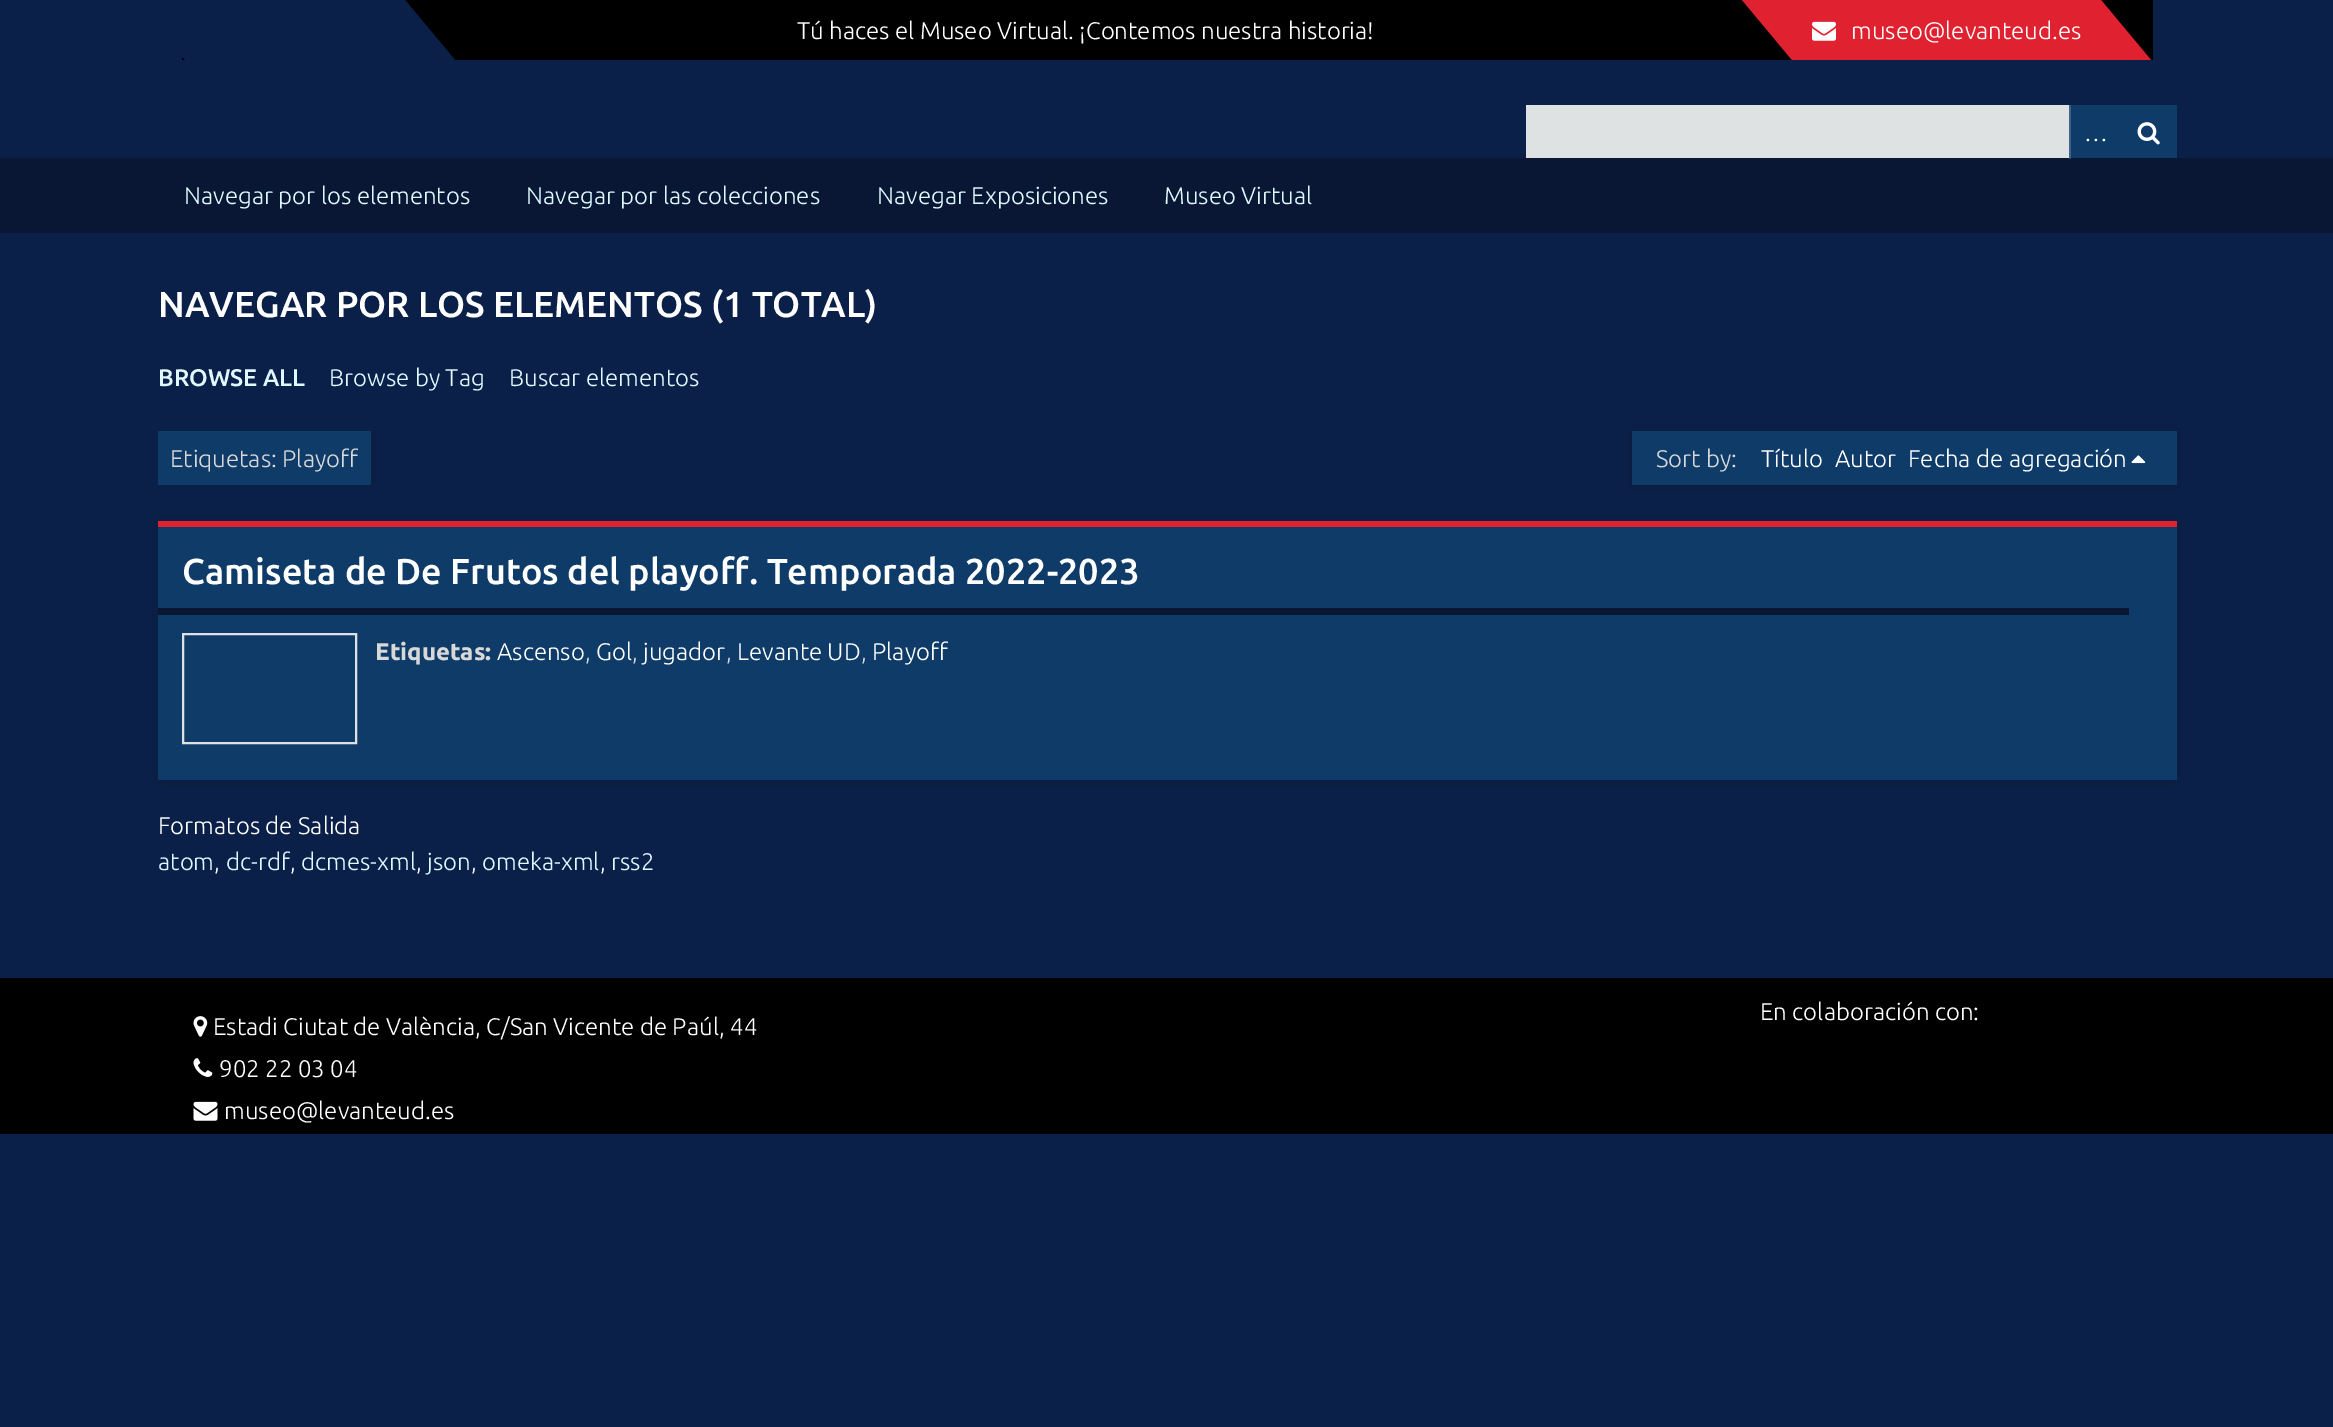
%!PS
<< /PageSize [2333 1427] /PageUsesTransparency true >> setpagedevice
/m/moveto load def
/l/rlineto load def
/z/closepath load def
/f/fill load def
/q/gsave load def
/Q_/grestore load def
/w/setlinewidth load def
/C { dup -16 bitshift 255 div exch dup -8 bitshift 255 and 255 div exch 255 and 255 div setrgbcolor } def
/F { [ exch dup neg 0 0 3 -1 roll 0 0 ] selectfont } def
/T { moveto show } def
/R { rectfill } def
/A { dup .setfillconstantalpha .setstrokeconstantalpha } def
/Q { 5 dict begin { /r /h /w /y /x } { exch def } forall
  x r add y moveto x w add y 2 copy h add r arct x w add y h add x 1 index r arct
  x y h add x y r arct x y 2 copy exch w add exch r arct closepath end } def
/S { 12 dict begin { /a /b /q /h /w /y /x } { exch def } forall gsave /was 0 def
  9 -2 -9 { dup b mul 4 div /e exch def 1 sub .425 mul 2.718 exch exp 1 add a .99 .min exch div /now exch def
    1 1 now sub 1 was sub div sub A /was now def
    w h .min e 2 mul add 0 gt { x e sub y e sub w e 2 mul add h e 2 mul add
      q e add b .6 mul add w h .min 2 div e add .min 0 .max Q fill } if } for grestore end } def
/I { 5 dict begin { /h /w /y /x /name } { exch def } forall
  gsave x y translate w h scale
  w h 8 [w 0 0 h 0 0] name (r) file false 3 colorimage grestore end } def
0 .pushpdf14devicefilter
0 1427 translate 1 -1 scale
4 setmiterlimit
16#0B2049 C
0 0 2333 1427 R
16#000000 C
182 0 1971 60 R
q
182 0 1971 60 rectclip
16#0B2049 C
135 0 m 270 0 l 50 60 l -270 0 l z f
Q_
/Ubuntu-Light 24 F
16#FFFFFF C
(Tú haces el Museo Virtual. ¡Contemos nuestra historia!) 797 39 T
16#E02130 C
1742 0 m 359 0 l 50 60 l -359 0 l z f
(1.rgb) 1812 21 24 20 I
16#FFFFFF C
(museo@levanteud.es) 1851 39 T
16#DFE2E2 C
1526 105 543 53 R
16#0E3B68 C
2071 105 106 53 R
16#3E6286 C
2069 105 2 53 R
16#FFFFFF C
(…) 2084 141 T
(2.rgb) 2137 122 23 23 I
16#091734 C
0 158 2333 75 R
16#3A455D C
2069 158 2 1 R
16#DEF9FF C
(Navegar por los elementos) 184 204 T
(Navegar por las colecciones) 526 204 T
(Navegar Exposiciones) 877 204 T
(Museo Virtual) 1164 204 T
/Ubuntu-Medium 36 F
16#FFFFFF C
(NAVEGAR POR LOS ELEMENTOS \(1 TOTAL\)) 158 317 T
/Ubuntu-Medium 24 F
16#DEF9FF C
(BROWSE ALL) 158 386 T
/Ubuntu-Light 24 F
(Browse by Tag) 329 386 T
(Buscar elementos) 509 386 T
q
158 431 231 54 rectclip
16#000000 C
158 431 213 54 0 7.5 .15 S
Q_
16#0E3B68 C
158 431 213 54 R
16#D8D8D8 C
(Etiquetas: Playoff) 170 467 T
16#000000 C
1632 431 545 54 0 7.5 .15 S
16#0E3B68 C
1632 431 545 54 R
16#D8D8D8 C
(Sort by:) 1656 467 T
16#FFFFFF C
(Título) 1761 467 T
(Autor) 1835 467 T
(Fecha de agregación) 1908 467 T
(3.rgb) 2131 455 15 9 I
16#000000 C
158 521 2019 259 0 7.5 .15 S
16#0E3B68 C
158 527 2019 253 R
16#E02130 C
158 521 2019 6 R
16#091734 C
158 608 1971 7 R
/Ubuntu-Medium 36 F
16#FFFFFF C
(Camiseta de De Frutos del playoff. Temporada 2022-2023) 182 584 T
16#DFE2E2 C
2 w
183 634 173 109 rectstroke
/Ubuntu-Bold 24 F
16#D8D8D8 C
(Etiquetas:) 375 660 T
/Ubuntu-Light 24 F
16#FFFFFF C
(Ascenso) 497 660 T
16#D8D8D8 C
(,) 585 660 T
16#FFFFFF C
(Gol) 596 660 T
16#D8D8D8 C
(,) 632 660 T
16#FFFFFF C
(jugador) 643 660 T
16#D8D8D8 C
(,) 726 660 T
16#FFFFFF C
(Levante UD) 737 660 T
16#D8D8D8 C
(,) 861 660 T
16#FFFFFF C
(Playoff) 872 660 T
(Formatos de Salida) 158 834 T
16#DEF9FF C
(atom) 158 870 T
16#FFFFFF C
(,) 214 870 T
16#DEF9FF C
(dc-rdf) 226 870 T
16#FFFFFF C
(,) 290 870 T
16#DEF9FF C
(dcmes-xml) 301 870 T
16#FFFFFF C
(,) 416 870 T
16#DEF9FF C
(json) 427 870 T
16#FFFFFF C
(,) 471 870 T
16#DEF9FF C
(omeka-xml) 482 870 T
16#FFFFFF C
(,) 600 870 T
16#DEF9FF C
(rss2) 611 870 T
16#000000 C
0 978 2333 156 R
16#FFFFFF C
(En colaboración con:) 1760 1020 T
(4.rgb) 193 1016 15 21 I
(Estadi Ciutat de València, C/San Vicente de Paúl, 44) 213 1035 T
(5.rgb) 193 1058 20 19 I
(902 22 03 04) 219 1077 T
(6.rgb) 193 1101 25 20 I
(museo@levanteud.es) 224 1119 T
.poppdf14devicefilter showpage
